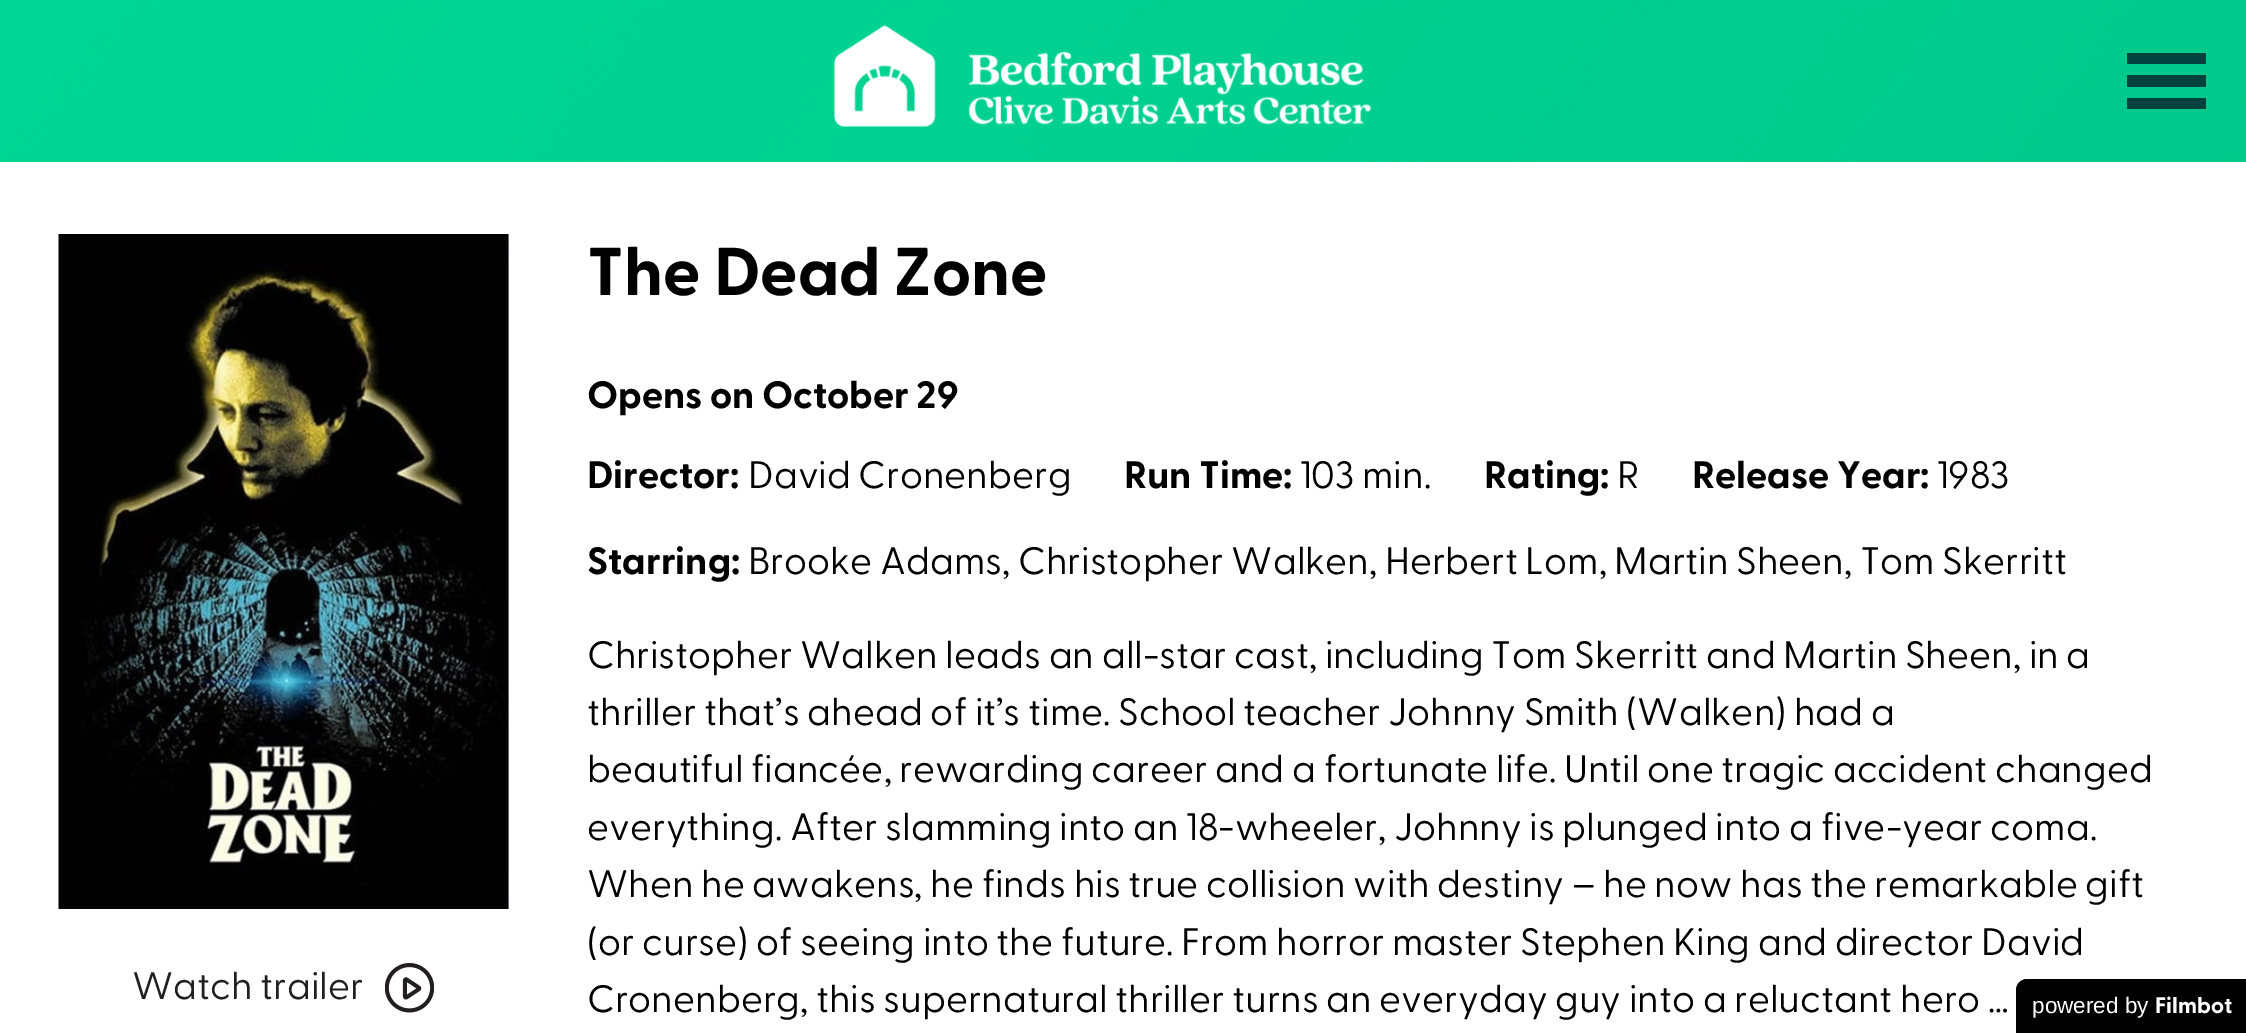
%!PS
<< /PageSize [2246 1033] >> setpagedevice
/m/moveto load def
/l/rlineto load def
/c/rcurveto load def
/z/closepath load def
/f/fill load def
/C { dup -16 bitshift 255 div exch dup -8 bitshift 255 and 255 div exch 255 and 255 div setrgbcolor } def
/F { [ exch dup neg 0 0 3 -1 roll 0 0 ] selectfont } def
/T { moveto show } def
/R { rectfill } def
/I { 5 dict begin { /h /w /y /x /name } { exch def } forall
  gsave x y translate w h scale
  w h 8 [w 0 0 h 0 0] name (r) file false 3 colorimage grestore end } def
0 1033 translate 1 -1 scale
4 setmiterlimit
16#FFFFFF C
0 0 2246 1033 R
(1.rgb) 0 0 2246 162 I
(2.rgb) 833 25 538 102 I
16#00423D C
2127 53 m 0 11 l 79 0 l 0 -11 l z 2127 75 m 0 12 l 79 0 l 0 -12 l z 2127 98 m 0 11 l 79 0 l 0 -11 l z f
16#CCCCCC C
508 234 1 675 R
(3.rgb) 58 234 451 675 I
/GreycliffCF-Regular 38.25 F
16#231F20 C
(Watch trailer) 132 999 T
(4.rgb) 385 963 49 50 I
/GreycliffCF-Bold 67.5 F
16#000000 C
(The Dead Zone) 587 295 T
/GreycliffCF-Bold 38.25 F
(Opens on October 29) 587 408 T
(Director:) 587 488 T
/GreycliffCF-Regular 38.25 F
(David Cronenberg) 748 488 T
/GreycliffCF-Bold 38.25 F
(Run Time:) 1124 488 T
/GreycliffCF-Regular 38.25 F
(103 min.) 1300 488 T
/GreycliffCF-Bold 38.25 F
(Rating:) 1484 488 T
/GreycliffCF-Regular 38.25 F
(R) 1617 488 T
/GreycliffCF-Bold 38.25 F
(Release Year:) 1692 488 T
/GreycliffCF-Regular 38.25 F
(1983) 1937 488 T
/GreycliffCF-Bold 38.25 F
(Starring:) 587 574 T
/GreycliffCF-Regular 38.25 F
(Brooke Adams, Christopher Walken, Herbert Lom, Martin Sheen, Tom Skerritt) 748 574 T
(Christopher Walken leads an all-star cast, including Tom Skerritt and Martin Sheen, in a) 587 668 T
(thriller that’s ahead of it’s time. School teacher Johnny Smith \(Walken\) had a) 587 725 T
(beautiful fiancée, rewarding career and a fortunate life. Until one tragic accident changed) 587 782 T
(everything. After slamming into an 18-wheeler, Johnny is plunged into a five-year coma.) 587 840 T
(When he awakens, he finds his true collision with destiny – he now has the remarkable gift) 587 897 T
(\(or curse\) of seeing into the future. From horror master Stephen King and director David) 587 955 T
(Cronenberg, this supernatural thriller turns an everyday guy into a reluctant hero …) 587 1012 T
2027 979 m 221 0 l 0 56 l -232 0 l 0 -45 l 0 -6 5 -11 11 -11 c z f
/LiberationSans-Regular 22.5 F
16#FFFFFF C
(powered by) 2032 1013 T
/GreycliffCF-Bold 22.5 F
(Filmbot) 2155 1013 T
showpage
